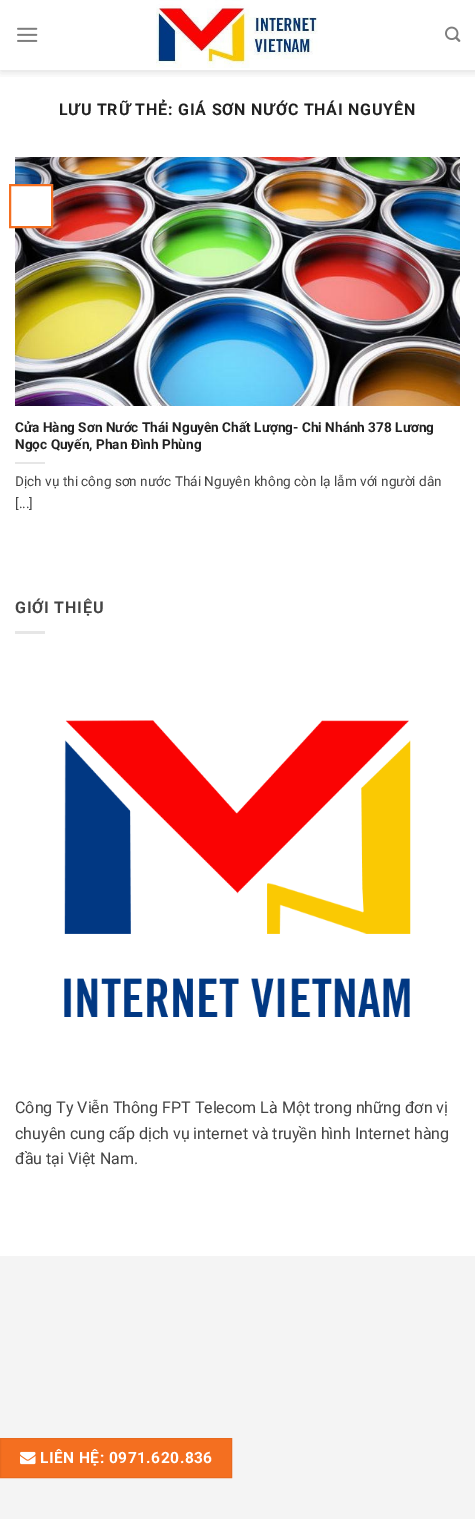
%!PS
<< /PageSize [475 1519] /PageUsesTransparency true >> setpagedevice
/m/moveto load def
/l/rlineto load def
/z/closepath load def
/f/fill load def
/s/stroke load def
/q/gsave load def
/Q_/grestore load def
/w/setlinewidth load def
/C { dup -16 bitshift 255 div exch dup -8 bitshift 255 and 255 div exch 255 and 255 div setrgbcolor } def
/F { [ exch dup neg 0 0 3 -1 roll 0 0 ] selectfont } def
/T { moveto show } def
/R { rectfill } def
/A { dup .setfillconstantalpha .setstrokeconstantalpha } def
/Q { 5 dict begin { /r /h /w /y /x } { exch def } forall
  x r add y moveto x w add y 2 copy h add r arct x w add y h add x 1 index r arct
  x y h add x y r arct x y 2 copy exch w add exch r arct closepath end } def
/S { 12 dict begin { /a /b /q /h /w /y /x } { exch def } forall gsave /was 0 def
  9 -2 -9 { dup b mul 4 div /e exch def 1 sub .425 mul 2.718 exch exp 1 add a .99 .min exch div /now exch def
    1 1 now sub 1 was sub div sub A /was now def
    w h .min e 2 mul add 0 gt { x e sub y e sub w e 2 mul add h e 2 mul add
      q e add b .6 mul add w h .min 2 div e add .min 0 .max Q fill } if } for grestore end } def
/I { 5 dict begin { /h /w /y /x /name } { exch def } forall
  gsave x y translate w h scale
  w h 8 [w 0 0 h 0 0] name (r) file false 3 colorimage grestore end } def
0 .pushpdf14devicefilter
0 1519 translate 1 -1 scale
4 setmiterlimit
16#F4F4F4 C
0 0 475 1519 R
16#FFFFFF C
0 0 475 1256 R
q
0 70 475 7 rectclip
16#000000 C
1 1 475 70 0 5 .15 S
Q_
(1.rgb) 17 27 21 15 I
(2.rgb) 156 0 162 68 I
(3.rgb) 445 26 16 16 I
/Roboto-Bold 16 F
16#222222 C
59 115 m .8 0 (LƯU TRỮ THẺ: GIÁ SƠN NƯỚC THÁI NGUYÊN) ashow
(4.rgb) 15 157 445 249 I
16#FFFFFF C
15 186 36 40 R
16#F46F20 C
2 w
10 185 42 42 rectstroke
/Roboto-Bold 13.6 F
16#222222 C
(Cửa Hàng Sơn Nước Thái Nguyên Chất Lượng- Chi Nhánh 378 Lương) 15 432 T
(Ngọc Quyến, Phan Đình Phùng) 15 449 T
16#E6E6E6 C
15 462 30 2 R
/Roboto-Regular 13.6 F
16#444444 C
(Dịch vụ thi công sơn nước Thái Nguyên không còn lạ lẫm với người dân) 15 486 T
([...]) 15 508 T
/Roboto-Bold 16 F
15 613 m .8 0 (GIỚI THIỆU) ashow
16#E6E6E6 C
15 631 30 3 R
(5.rgb) 64 720 347 297 I
/Roboto-Regular 16 F
16#444444 C
(Công Ty Viễn Thông FPT Telecom Là Một trong những đơn vị) 15 1113 T
(chuyên cung cấp dịch vụ internet và truyền hình Internet hàng) 15 1139 T
(đầu tại Việt Nam.) 15 1164 T
16#F46F20 C
.5 1438.5 m 231 0 l 0 39 l -231 0 l z q f Q_
16#E8691E C
1 w
s
(6.rgb) 20 1451 16 14 I
/Roboto-Bold 15.5 F
16#FFFFFF C
40 1463 m .5 0 (LIÊN HỆ: 0971.620.836) ashow
.poppdf14devicefilter showpage
